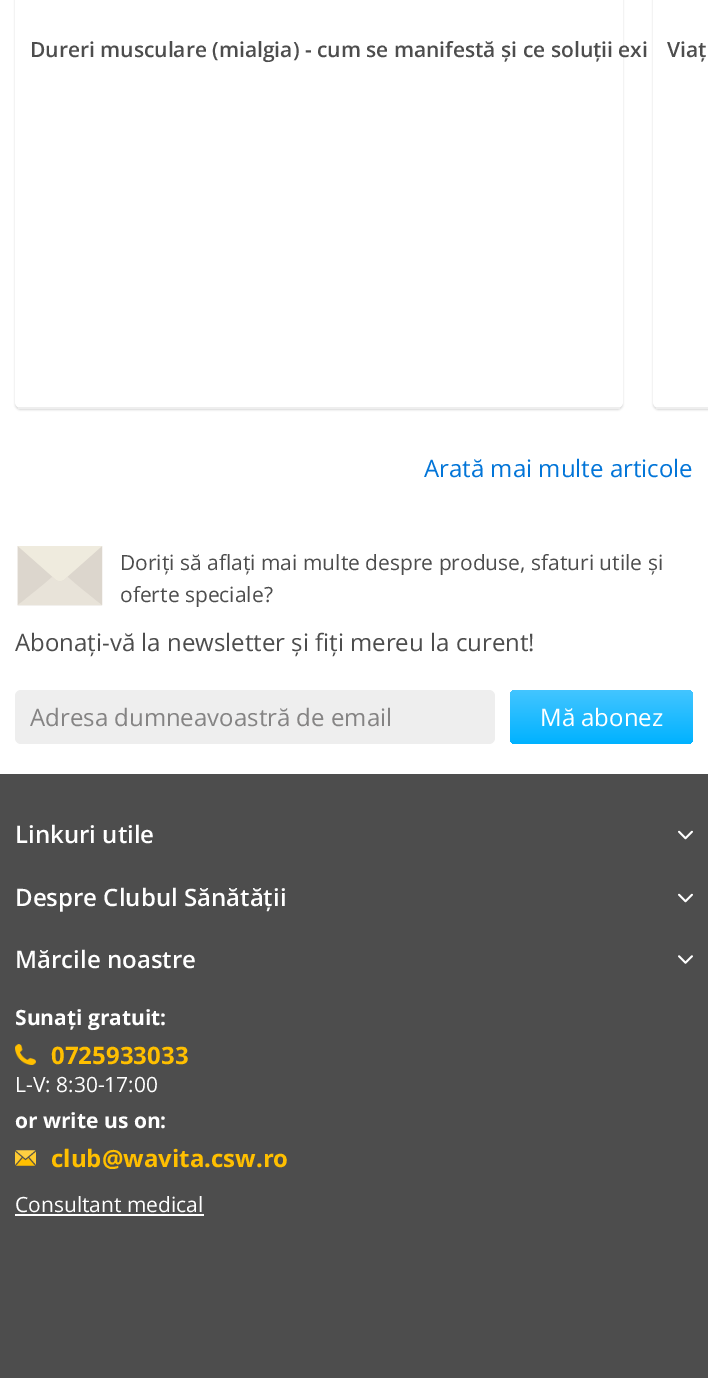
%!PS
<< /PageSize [708 1378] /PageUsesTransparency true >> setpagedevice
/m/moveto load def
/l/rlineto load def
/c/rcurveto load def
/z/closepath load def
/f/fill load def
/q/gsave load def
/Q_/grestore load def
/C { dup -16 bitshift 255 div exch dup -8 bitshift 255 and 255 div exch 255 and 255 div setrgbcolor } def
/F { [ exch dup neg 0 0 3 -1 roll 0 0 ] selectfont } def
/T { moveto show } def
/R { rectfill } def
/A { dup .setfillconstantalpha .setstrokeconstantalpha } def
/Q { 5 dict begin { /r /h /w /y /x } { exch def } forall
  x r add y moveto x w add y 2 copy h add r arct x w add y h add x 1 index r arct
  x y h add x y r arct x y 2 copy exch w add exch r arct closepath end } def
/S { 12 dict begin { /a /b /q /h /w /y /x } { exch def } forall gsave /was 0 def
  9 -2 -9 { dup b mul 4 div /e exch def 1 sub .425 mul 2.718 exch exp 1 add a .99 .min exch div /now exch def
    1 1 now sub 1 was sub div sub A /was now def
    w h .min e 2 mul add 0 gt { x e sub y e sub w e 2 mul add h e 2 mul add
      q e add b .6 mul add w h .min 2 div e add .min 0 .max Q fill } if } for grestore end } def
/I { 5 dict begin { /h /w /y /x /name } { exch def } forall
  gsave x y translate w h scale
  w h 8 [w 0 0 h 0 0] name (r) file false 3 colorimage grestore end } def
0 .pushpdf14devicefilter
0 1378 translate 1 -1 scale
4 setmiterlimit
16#FFFFFF C
0 0 708 1378 R
16#000000 C
15 -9 608 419 6 1 .15 S
16#FFFFFF C
15 -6 608 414 6 Q f
16#EEEEEE C
18 407 602 2 R
/OpenSans-SemiBold 21 F
16#4D4D4D C
(Dureri musculare \(mialgia\) - cum se manifestă și ce soluții exi) 30 57 T
16#000000 C
653 -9 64 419 6 1 .15 S
16#FFFFFF C
659 -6 m 49 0 l 0 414 l -49 0 l -3.5 0 -6 -2.5 -6 -6 c 0 -402 l 0 -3.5 2.5 -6 6 -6 c z f
16#EEEEEE C
656 407 52 2 R
16#4D4D4D C
(Viaț) 667 57 T
/OpenSans-Regular 24 F
16#0275D8 C
(Arată mai multe articole) 424 477 T
(1.rgb) 17 546 86 60 I
/OpenSans-Regular 21 F
16#4D4D4D C
(Doriți să aflați mai multe despre produse, sfaturi utile și) 120 570 T
(oferte speciale?) 120 602 T
/OpenSans-Regular 24 F
(Abonați-vă la newsletter și fiți mereu la curent!) 15 651 T
16#EEEEEE C
15 690 480 54 6 Q f
16#858484 C
(Adresa dumneavoastră de email) 30 726 T
q 510 690 183 54 6 Q clip newpath
<< /ShadingType 2 /ColorSpace /DeviceRGB /Coords [602 690 602 744] /Extend [true true] /Function << /FunctionType 2 /Domain [0 1] /C0 [.263 .773 1] /C1 [0 .698 1] /N 1 >> >> shfill Q_
16#FFFFFF C
(Mă abonez) 540 726 T
16#4D4D4D C
0 774 708 604 R
/OpenSans-SemiBold 24 F
16#FFFFFF C
(Linkuri utile) 15 843 T
(2.rgb) 678 830 15 10 I
(Despre Clubul Sănătății) 15 906 T
(2.rgb) 678 893 15 10 I
(Mărcile noastre) 15 968 T
(3.rgb) 678 955 15 9 I
/OpenSans-Bold 21 F
(Sunați gratuit:) 15 1025 T
(4.rgb) 15 1044 21 21 I
/OpenSans-Bold 24 F
16#FFBF00 C
(0725933033) 51 1064 T
/OpenSans-Regular 21 F
16#FFFFFF C
(L-V: 8:30-17:00) 15 1092 T
/OpenSans-Bold 21 F
(or write us on:) 15 1128 T
(5.rgb) 15 1150 21 16 I
/OpenSans-Bold 24 F
16#FFBF00 C
(club@wavita.csw.ro) 51 1167 T
/OpenSans-Regular 21 F
16#FFFFFF C
(Consultant medical) 15 1212 T
15 1214 189 2 R
.poppdf14devicefilter showpage
